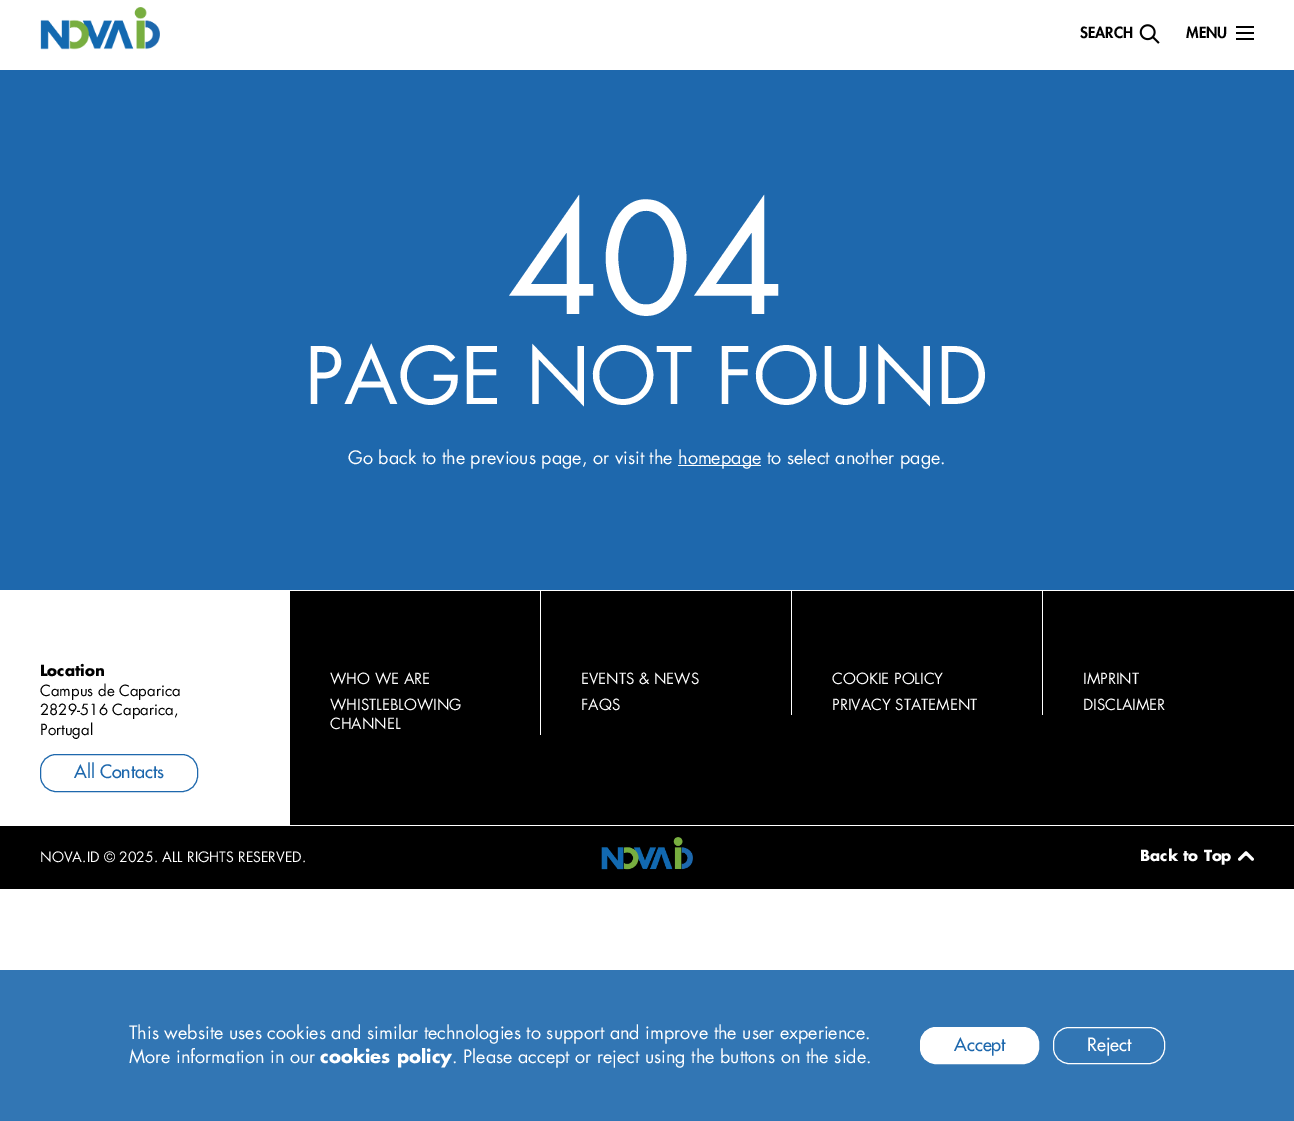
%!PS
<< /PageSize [1294 1121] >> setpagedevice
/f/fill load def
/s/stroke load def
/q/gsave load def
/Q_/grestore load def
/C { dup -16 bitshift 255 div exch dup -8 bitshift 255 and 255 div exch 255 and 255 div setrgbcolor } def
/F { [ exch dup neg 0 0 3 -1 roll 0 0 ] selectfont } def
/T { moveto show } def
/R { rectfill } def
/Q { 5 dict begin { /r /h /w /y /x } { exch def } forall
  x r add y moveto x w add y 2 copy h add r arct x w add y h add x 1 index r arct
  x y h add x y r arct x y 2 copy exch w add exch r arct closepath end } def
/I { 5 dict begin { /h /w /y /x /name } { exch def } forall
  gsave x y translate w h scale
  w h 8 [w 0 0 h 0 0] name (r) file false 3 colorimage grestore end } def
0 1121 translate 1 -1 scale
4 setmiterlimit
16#FFFFFF C
0 0 1294 1121 R
(1.rgb) 40 7 120 43 I
/Futura-Black 15 F
16#000000 C
(SEARCH) 1080 38 T
(2.rgb) 1139 24 21 20 I
(MENU) 1186 38 T
(3.rgb) 1236 26 18 14 I
16#1E68AD C
0 70 1294 520 R
/Futura-Regular 150 F
16#FFFFFF C
(404) 508 314 T
/Futura-Regular 77 F
(PAGE NOT FOUND) 305 404 T
/Futura-Regular 18 F
(Go back to the previous page, or visit the) 348 464 T
678 465 83 1 R
(homepage to select another page.) 678 464 T
/Futura-Bold 15 F
16#000000 C
(Location) 40 676 T
/Futura-Regular 15 F
(Campus de Caparica) 40 696 T
(2829-516 Caparica,) 40 715 T
(Portugal) 40 735 T
16#1E68AD C
40.5 754.5 157 37 15.5 Q s
/Futura-Medium 18 F
(All Contacts) 74 778 T
16#000000 C
290 591 1004 234 R
16#FFFFFF C
540 591 1 144 R
/Futura-Regular 15 F
(WHO WE ARE) 330 684 T
(WHISTLEBLOWING) 330 710 T
(CHANNEL) 330 729 T
791 591 1 124 R
(EVENTS & NEWS) 581 684 T
(FAQS) 581 710 T
1042 591 1 124 R
(COOKIE POLICY) 832 684 T
(PRIVACY STATEMENT) 832 710 T
(IMPRINT) 1083 684 T
(DISCLAIMER) 1083 710 T
16#000000 C
0 826 1294 63 R
/Futura-Regular 14 F
16#FFFFFF C
(NOVA.ID © 2025. ALL RIGHTS RESERVED.) 40 862 T
(4.rgb) 601 837 92 33 I
/Futura-Bold 15 F
(Back to Top) 1140 861 T
(5.rgb) 1238 851 16 10 I
16#3276B4 C
0 970 1294 151 R
/Futura-Regular 18 F
16#FFFFFF C
(This website uses cookies and similar technologies to support and improve the user experience.) 129 1039 T
(More information in our) 129 1063 T
/Futura-Bold 18 F
(cookies policy) 320 1063 T
/Futura-Regular 18 F
(. Please accept or reject using the buttons on the side.) 452 1063 T
920.5 1027.5 118 36 15.5 Q q f Q_
s
/Futura-Medium 18 F
16#1E68AD C
(Accept) 954 1051 T
16#FFFFFF C
1053.5 1027.5 111 36 15.5 Q s
(Reject) 1087 1051 T
showpage
